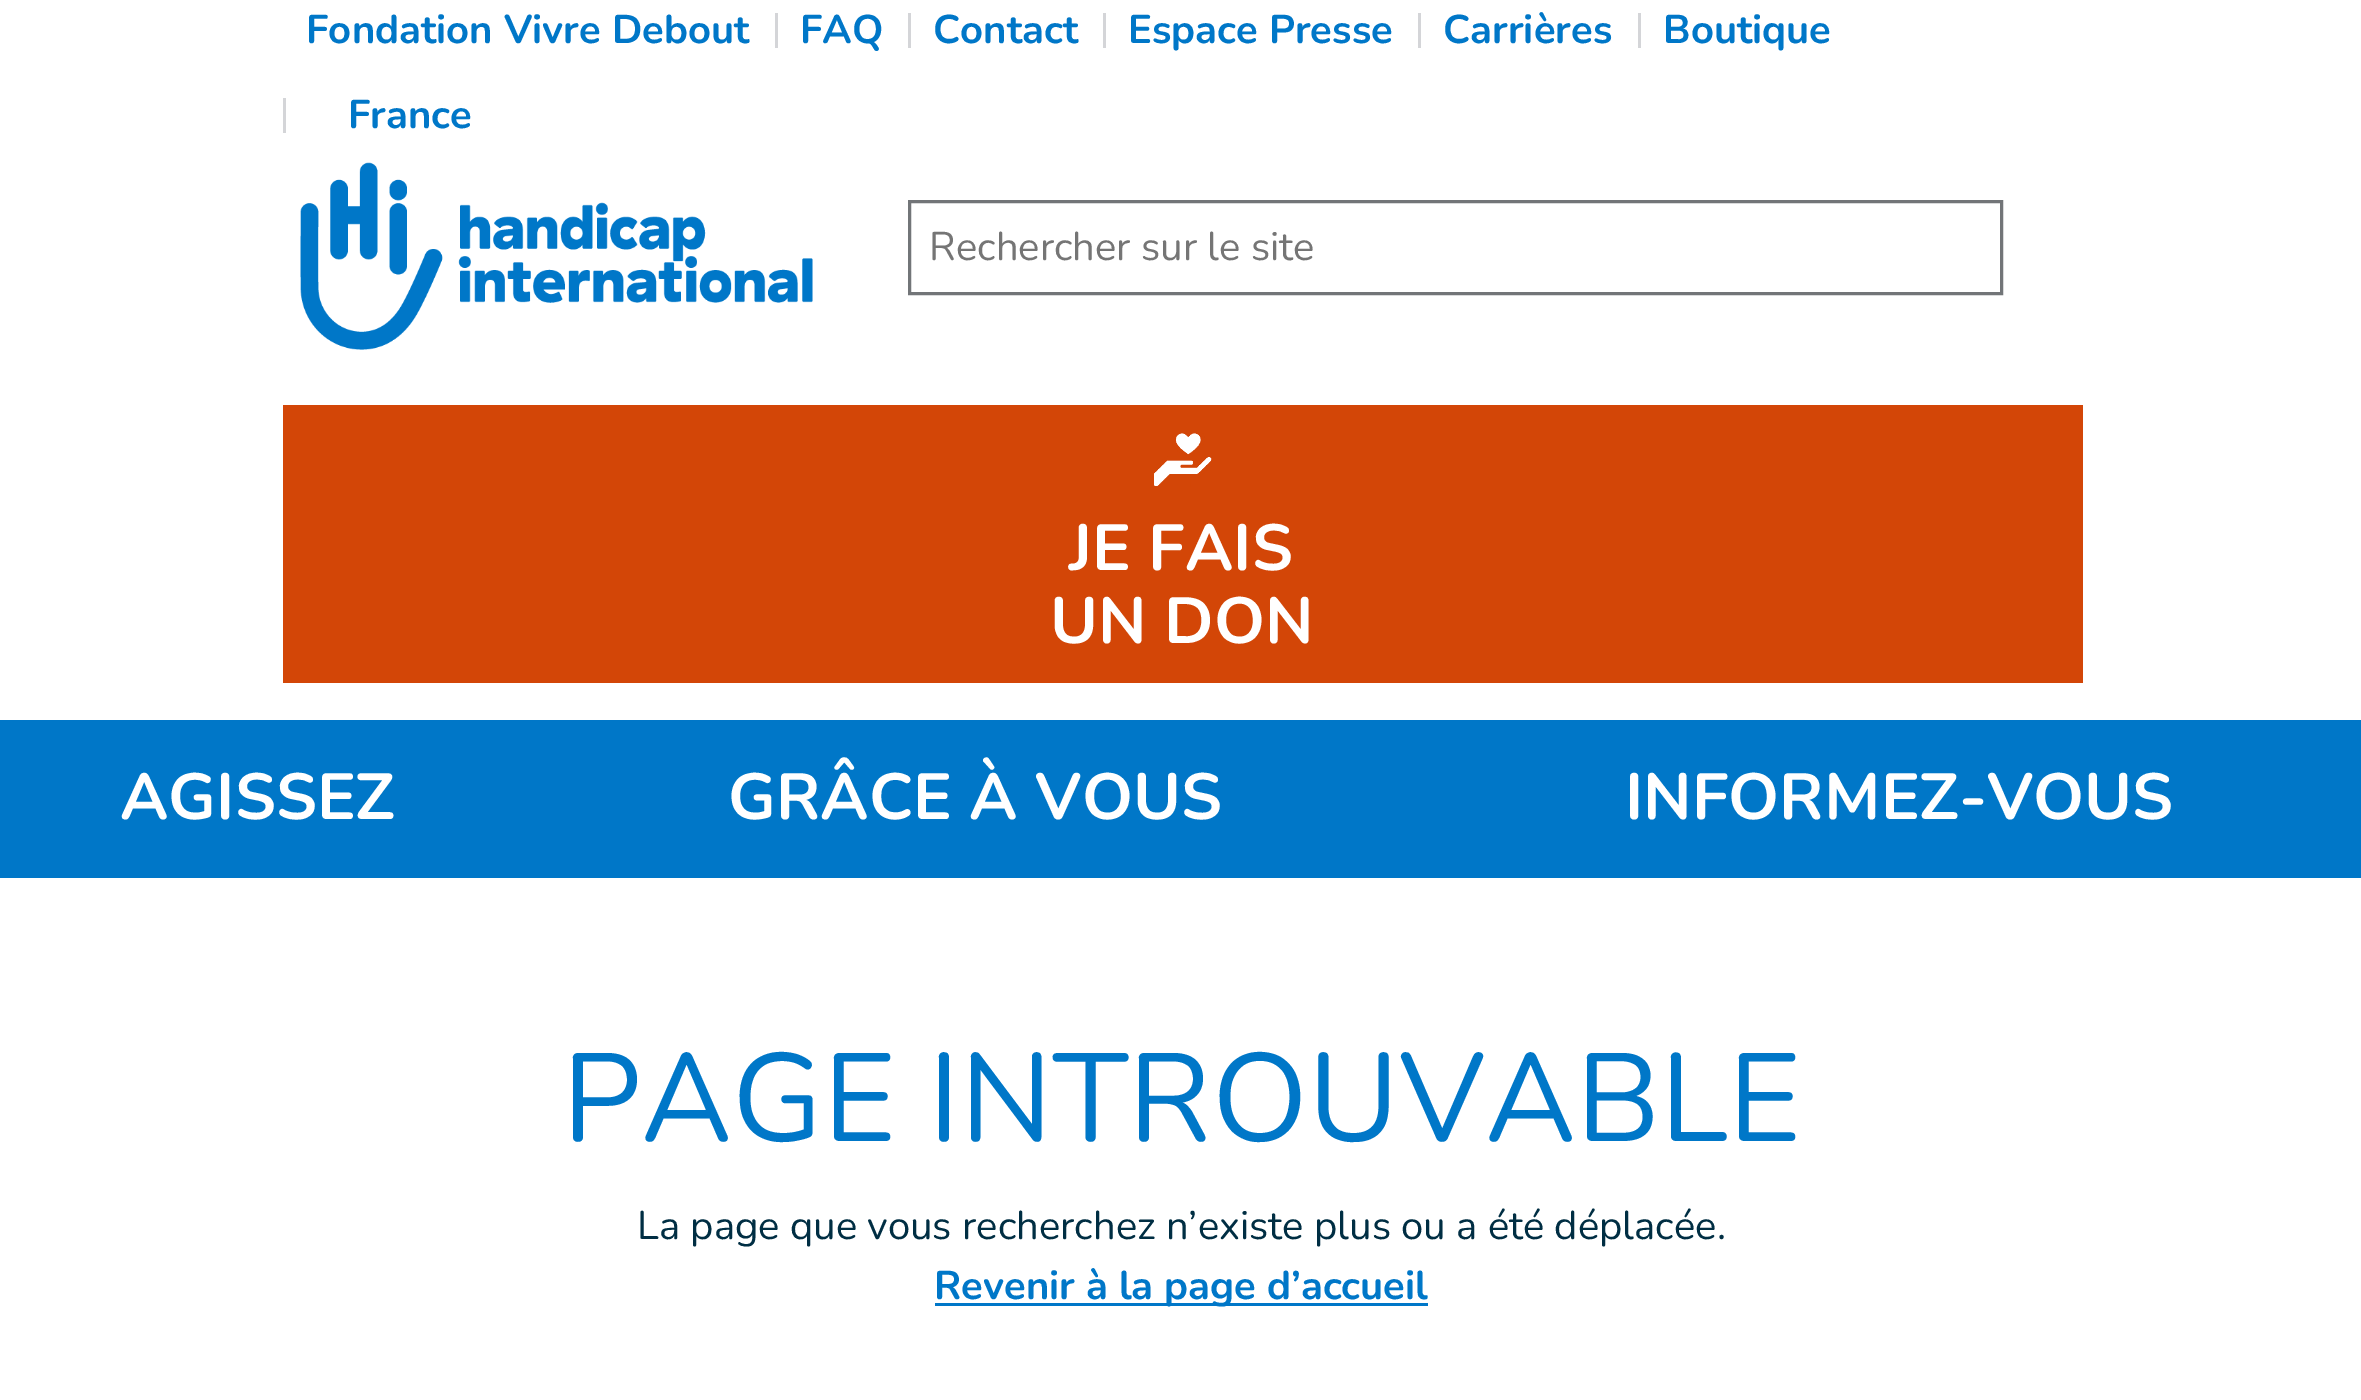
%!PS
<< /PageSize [2361 1400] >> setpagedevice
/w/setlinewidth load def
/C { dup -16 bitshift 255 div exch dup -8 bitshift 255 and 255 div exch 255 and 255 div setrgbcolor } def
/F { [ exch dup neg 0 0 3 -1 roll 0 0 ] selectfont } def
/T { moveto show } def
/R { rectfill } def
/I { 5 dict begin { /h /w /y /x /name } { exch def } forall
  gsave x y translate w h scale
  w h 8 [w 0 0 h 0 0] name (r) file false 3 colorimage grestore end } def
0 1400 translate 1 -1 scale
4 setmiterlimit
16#FFFFFF C
0 0 2361 1400 R
/Nunito-Bold 40 F
16#0077C8 C
(Fondation Vivre Debout) 306 43 T
16#D4D5D8 C
775 13 3 35 R
16#0077C8 C
(FAQ) 800 43 T
16#D4D5D8 C
908 13 3 35 R
16#0077C8 C
(Contact) 933 43 T
16#D4D5D8 C
1103 13 3 35 R
16#0077C8 C
(Espace Presse) 1128 43 T
16#D4D5D8 C
1418 13 3 35 R
16#0077C8 C
(Carrières) 1443 43 T
16#D4D5D8 C
1638 13 3 35 R
16#0077C8 C
(Boutique) 1663 43 T
16#D4D5D8 C
283 98 3 35 R
16#0077C8 C
(France) 348 128 T
(1.rgb) 300 162 513 188 I
16#727578 C
3 w
909.5 201.5 1092 92 rectstroke
/Nunito-Regular 40 F
16#757575 C
(Rechercher sur le site) 929 260 T
16#D34607 C
283 405 1800 278 R
(2.rgb) 1154 433 58 54 I
/Nunito-Bold 65 F
16#FFFFFF C
(JE FAIS) 1069 570 T
(UN DON) 1050 643 T
16#0077C8 C
0 720 2361 158 R
16#FFFFFF C
(AGISSEZ) 120 819 T
(GRÂCE À VOUS) 728 819 T
(INFORMEZ-VOUS) 1625 819 T
/Nunito-Regular 125 F
16#0077C8 C
(PAGE INTROUVABLE) 562 1141 T
/Nunito-Regular 40 F
16#002E43 C
(La page que vous recherchez n’existe plus ou a été déplacée.) 637 1239 T
16#0077C8 C
935 1303 493 3 R
/Nunito-Bold 40 F
(Revenir à la page d’accueil) 934 1299 T
showpage
